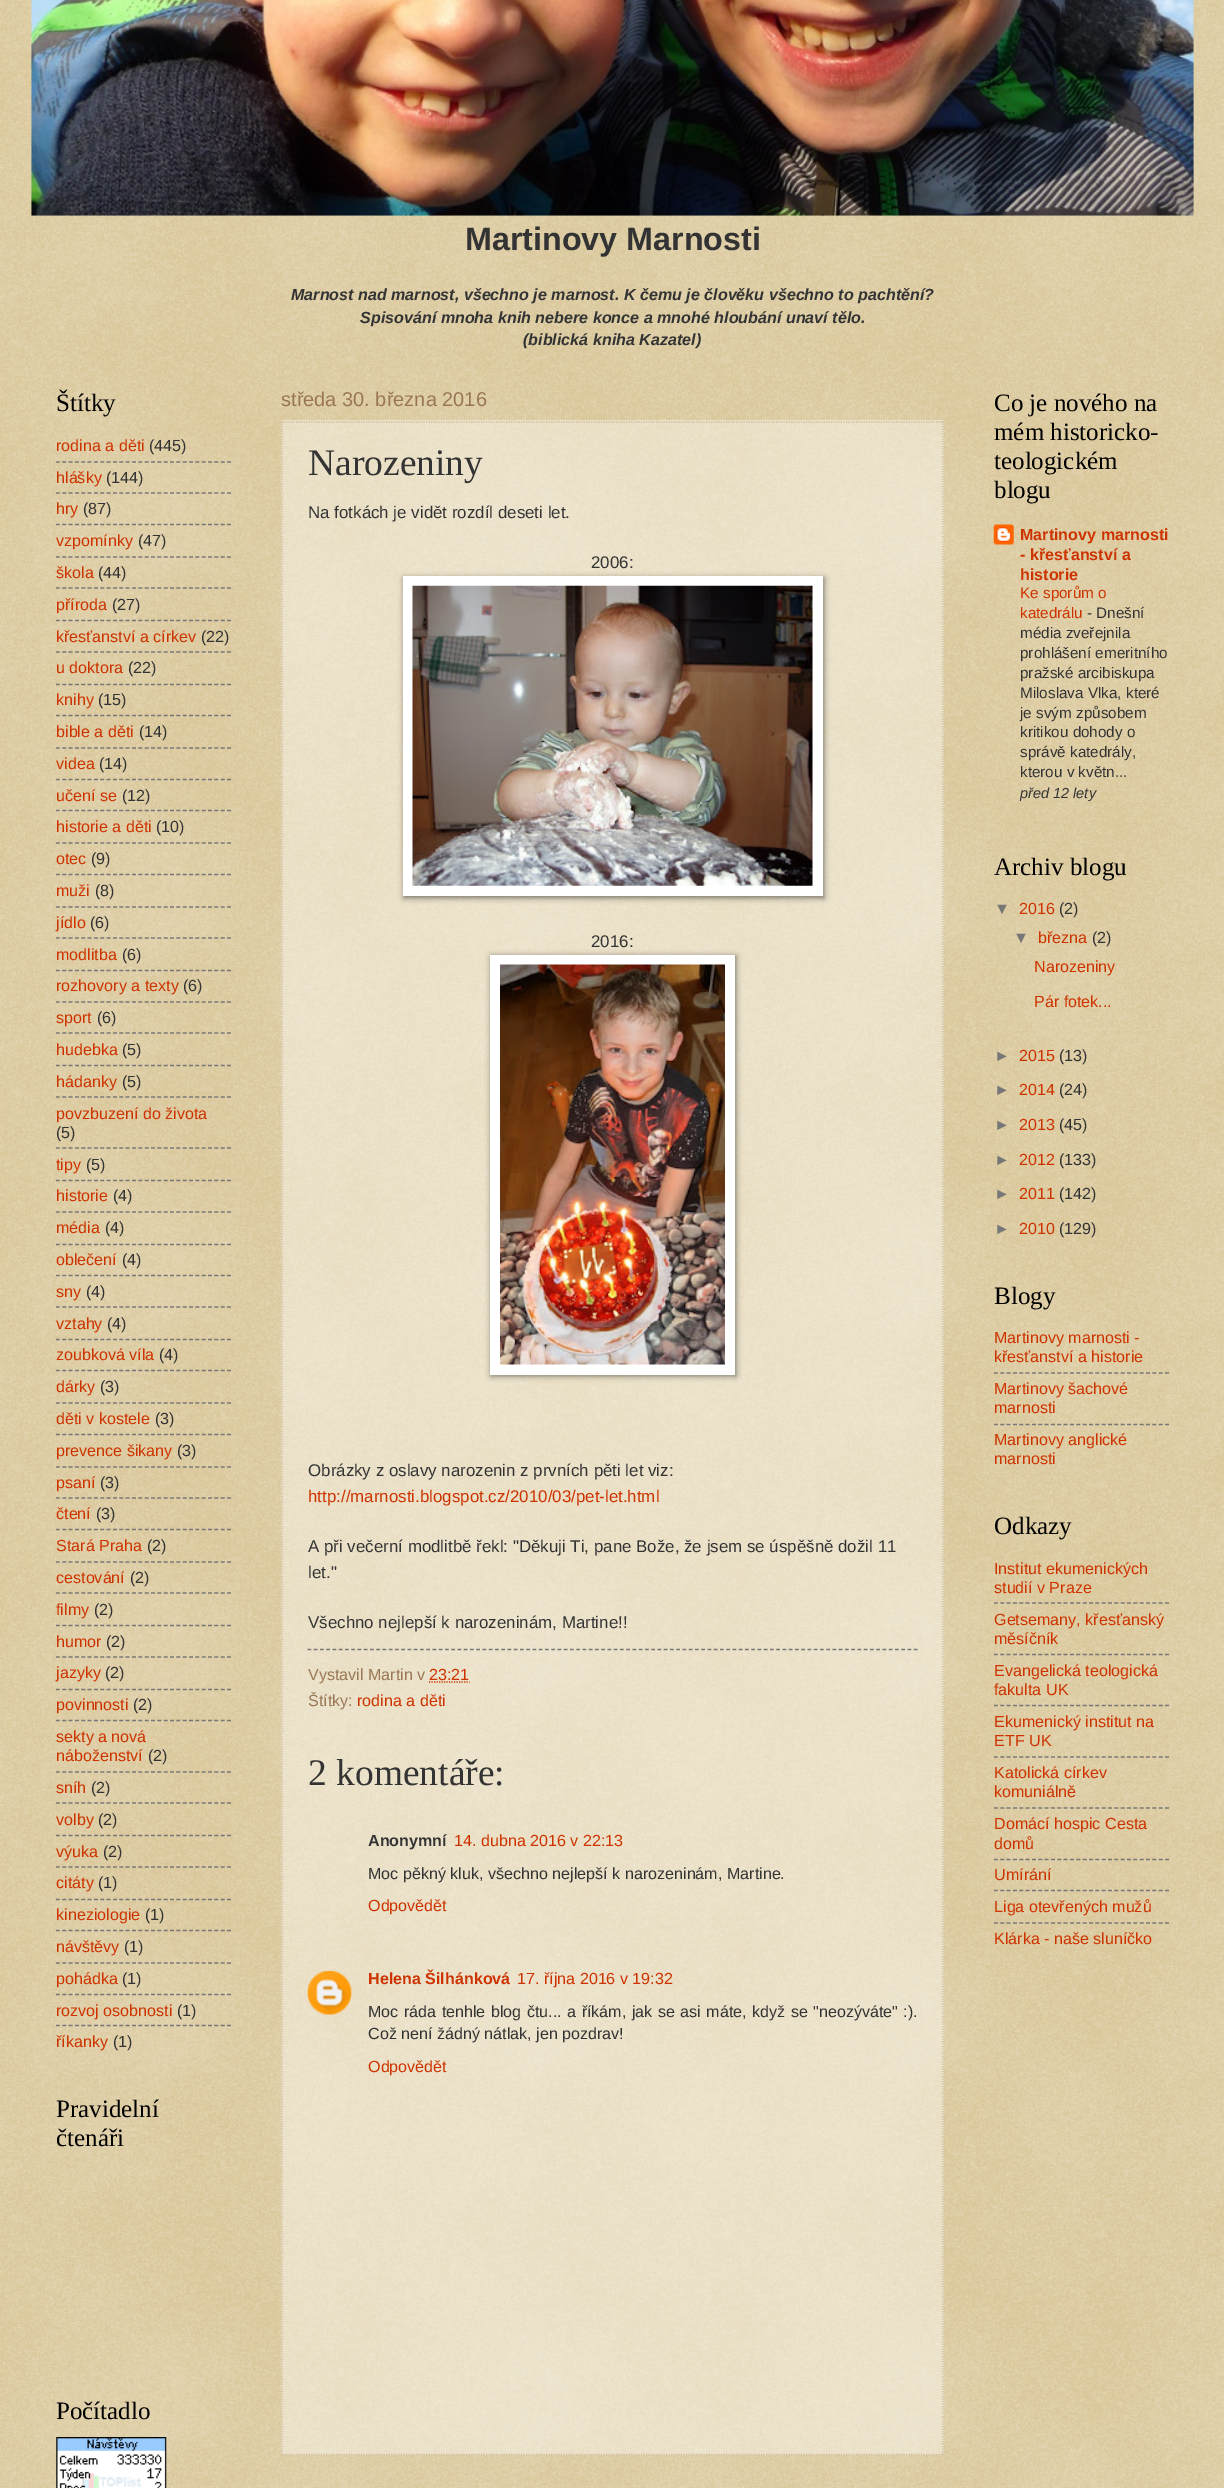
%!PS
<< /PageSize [1224 2488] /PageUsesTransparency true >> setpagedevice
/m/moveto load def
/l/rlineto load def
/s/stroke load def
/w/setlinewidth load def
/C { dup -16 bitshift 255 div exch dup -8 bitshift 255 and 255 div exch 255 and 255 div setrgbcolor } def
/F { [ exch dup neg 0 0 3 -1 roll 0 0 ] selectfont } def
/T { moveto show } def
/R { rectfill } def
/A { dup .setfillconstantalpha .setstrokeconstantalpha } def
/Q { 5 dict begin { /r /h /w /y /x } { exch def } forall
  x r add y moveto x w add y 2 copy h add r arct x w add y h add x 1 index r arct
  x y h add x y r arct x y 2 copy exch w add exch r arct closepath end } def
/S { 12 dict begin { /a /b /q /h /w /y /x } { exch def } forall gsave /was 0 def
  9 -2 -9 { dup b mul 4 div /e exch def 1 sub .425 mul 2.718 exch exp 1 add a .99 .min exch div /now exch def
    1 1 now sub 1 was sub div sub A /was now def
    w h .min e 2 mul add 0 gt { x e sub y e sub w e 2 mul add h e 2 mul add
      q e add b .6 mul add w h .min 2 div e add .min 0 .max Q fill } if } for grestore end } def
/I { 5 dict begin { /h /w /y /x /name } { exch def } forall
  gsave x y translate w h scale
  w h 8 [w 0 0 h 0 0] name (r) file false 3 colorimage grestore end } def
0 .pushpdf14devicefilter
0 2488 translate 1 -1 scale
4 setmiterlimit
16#C0A154 C
0 0 1224 2488 R
(1.rgb) 0 0 1224 2488 I
(2.rgb) 31 0 1163 216 I
/LiberationSans-Bold 32.25 F
16#333333 C
(Martinovy Marnosti) 465 250 T
/LiberationSans-BoldItalic 16.1 F
(Marnost nad marnost, všechno je marnost. K čemu je člověku všechno to pachtění?) 291 300 T
(Spisování mnoha knih nebere konce a mnohé hloubání unaví tělo.) 360 323 T
(\(biblická kniha Kazatel\)) 523 345 T
/LiberationSerif-Regular 25 F
16#000000 C
(Štítky) 56 411 T
/LiberationSans-Regular 16.1 F
16#CC3300 C
(rodina a děti) 56 451 T
16#333333 C
(\(445\)) 149 451 T
16#777777 C
1.2 w
[3.75 2.59] 0 setdash
56 462 m 175 0 l s
16#CC3300 C
(hlášky) 56 483 T
16#333333 C
(\(144\)) 106 483 T
16#777777 C
56 493 m 175 0 l s
16#CC3300 C
(hry) 56 514 T
16#333333 C
(\(87\)) 83 514 T
16#777777 C
56 524.5 m 175 0 l s
16#CC3300 C
(vzpomínky) 56 546 T
16#333333 C
(\(47\)) 138 546 T
16#777777 C
56 557 m 175 0 l s
16#CC3300 C
(škola) 56 578 T
16#333333 C
(\(44\)) 98 578 T
16#777777 C
56 588 m 175 0 l s
16#CC3300 C
(příroda) 56 610 T
16#333333 C
(\(27\)) 112 610 T
16#777777 C
56 620.5 m 175 0 l s
16#CC3300 C
(křesťanství a církev) 56 642 T
16#333333 C
(\(22\)) 201 642 T
16#777777 C
56 652 m 175 0 l s
16#CC3300 C
(u doktora) 56 673 T
16#333333 C
(\(22\)) 128 673 T
16#777777 C
56 684.5 m 175 0 l s
16#CC3300 C
(knihy) 56 705 T
16#333333 C
(\(15\)) 98 705 T
16#777777 C
56 715.5 m 175 0 l s
16#CC3300 C
(bible a děti) 56 737 T
16#333333 C
(\(14\)) 139 737 T
16#777777 C
56 748 m 175 0 l s
16#CC3300 C
(videa) 56 769 T
16#333333 C
(\(14\)) 99 769 T
16#777777 C
56 779.5 m 175 0 l s
16#CC3300 C
(učení se) 56 801 T
16#333333 C
(\(12\)) 122 801 T
16#777777 C
56 810.5 m 175 0 l s
16#CC3300 C
(historie a děti) 56 832 T
16#333333 C
(\(10\)) 156 832 T
16#777777 C
56 843 m 175 0 l s
16#CC3300 C
(otec) 56 864 T
16#333333 C
(\(9\)) 91 864 T
16#777777 C
56 874.5 m 175 0 l s
16#CC3300 C
(muži) 56 896 T
16#333333 C
(\(8\)) 95 896 T
16#777777 C
56 907 m 175 0 l s
16#CC3300 C
(jídlo) 56 928 T
16#333333 C
(\(6\)) 90 928 T
16#777777 C
56 938 m 175 0 l s
16#CC3300 C
(modlitba) 56 960 T
16#333333 C
(\(6\)) 122 960 T
16#777777 C
56 970.5 m 175 0 l s
16#CC3300 C
(rozhovory a texty) 56 991 T
16#333333 C
(\(6\)) 183 991 T
16#777777 C
56 1002 m 175 0 l s
16#CC3300 C
(sport) 56 1023 T
16#333333 C
(\(6\)) 97 1023 T
16#777777 C
56 1033 m 175 0 l s
16#CC3300 C
(hudebka) 56 1055 T
16#333333 C
(\(5\)) 122 1055 T
16#777777 C
56 1065.5 m 175 0 l s
16#CC3300 C
(hádanky) 56 1087 T
16#333333 C
(\(5\)) 122 1087 T
16#777777 C
56 1097 m 175 0 l s
16#CC3300 C
(povzbuzení do života) 56 1119 T
16#333333 C
(\(5\)) 56 1138 T
16#777777 C
56 1148 m 175 0 l s
16#CC3300 C
(tipy) 56 1170 T
16#333333 C
(\(5\)) 86 1170 T
16#777777 C
56 1180.5 m 175 0 l s
16#CC3300 C
(historie) 56 1201 T
16#333333 C
(\(4\)) 113 1201 T
16#777777 C
56 1212 m 175 0 l s
16#CC3300 C
(média) 56 1233 T
16#333333 C
(\(4\)) 105 1233 T
16#777777 C
56 1244.5 m 175 0 l s
16#CC3300 C
(oblečení) 56 1265 T
16#333333 C
(\(4\)) 122 1265 T
16#777777 C
56 1275.5 m 175 0 l s
16#CC3300 C
(sny) 56 1297 T
16#333333 C
(\(4\)) 86 1297 T
16#777777 C
56 1307 m 175 0 l s
16#CC3300 C
(vztahy) 56 1329 T
16#333333 C
(\(4\)) 107 1329 T
16#777777 C
56 1339.5 m 175 0 l s
16#CC3300 C
(zoubková víla) 56 1360 T
16#333333 C
(\(4\)) 159 1360 T
16#777777 C
56 1370.5 m 175 0 l s
16#CC3300 C
(dárky) 56 1392 T
16#333333 C
(\(3\)) 100 1392 T
16#777777 C
56 1403 m 175 0 l s
16#CC3300 C
(děti v kostele) 56 1424 T
16#333333 C
(\(3\)) 155 1424 T
16#777777 C
56 1434.5 m 175 0 l s
16#CC3300 C
(prevence šikany) 56 1456 T
16#333333 C
(\(3\)) 177 1456 T
16#777777 C
56 1467 m 175 0 l s
16#CC3300 C
(psaní) 56 1488 T
16#333333 C
(\(3\)) 100 1488 T
16#777777 C
56 1498 m 175 0 l s
16#CC3300 C
(čtení) 56 1519 T
16#333333 C
(\(3\)) 96 1519 T
16#777777 C
56 1529.5 m 175 0 l s
16#CC3300 C
(Stará Praha) 56 1551 T
16#333333 C
(\(2\)) 147 1551 T
16#777777 C
56 1562 m 175 0 l s
16#CC3300 C
(cestování) 56 1583 T
16#333333 C
(\(2\)) 130 1583 T
16#777777 C
56 1593 m 175 0 l s
16#CC3300 C
(filmy) 56 1615 T
16#333333 C
(\(2\)) 94 1615 T
16#777777 C
56 1625.5 m 175 0 l s
16#CC3300 C
(humor) 56 1647 T
16#333333 C
(\(2\)) 106 1647 T
16#777777 C
56 1657 m 175 0 l s
16#CC3300 C
(jazyky) 56 1678 T
16#333333 C
(\(2\)) 105 1678 T
16#777777 C
56 1689.5 m 175 0 l s
16#CC3300 C
(povinnosti) 56 1710 T
16#333333 C
(\(2\)) 133 1710 T
16#777777 C
56 1720.5 m 175 0 l s
16#CC3300 C
(sekty a nová) 56 1742 T
(náboženství) 56 1761 T
16#333333 C
(\(2\)) 148 1761 T
16#777777 C
56 1772 m 175 0 l s
16#CC3300 C
(sníh) 56 1793 T
16#333333 C
(\(2\)) 91 1793 T
16#777777 C
56 1803 m 175 0 l s
16#CC3300 C
(volby) 56 1825 T
16#333333 C
(\(2\)) 98 1825 T
16#777777 C
56 1835.5 m 175 0 l s
16#CC3300 C
(výuka) 56 1857 T
16#333333 C
(\(2\)) 103 1857 T
16#777777 C
56 1867 m 175 0 l s
16#CC3300 C
(citáty) 56 1888 T
16#333333 C
(\(1\)) 98 1888 T
16#777777 C
56 1899.5 m 175 0 l s
16#CC3300 C
(kineziologie) 56 1920 T
16#333333 C
(\(1\)) 145 1920 T
16#777777 C
56 1930.5 m 175 0 l s
16#CC3300 C
(návštěvy) 56 1952 T
16#333333 C
(\(1\)) 124 1952 T
16#777777 C
56 1963 m 175 0 l s
16#CC3300 C
(pohádka) 56 1984 T
16#333333 C
(\(1\)) 122 1984 T
16#777777 C
56 1994.5 m 175 0 l s
16#CC3300 C
(rozvoj osobnosti) 56 2016 T
16#333333 C
(\(1\)) 177 2016 T
16#777777 C
56 2025.5 m 175 0 l s
16#CC3300 C
(říkanky) 56 2047 T
16#333333 C
(\(1\)) 113 2047 T
/LiberationSerif-Regular 25 F
16#000000 C
(Pravidelní) 56 2117 T
(čtenáři) 56 2146 T
(Počítadlo) 56 2419 T
(3.rgb) 56 2437 111 51 I
/LiberationSans-Regular 20 F
16#997755 C
(středa 30. března 2016) 281 406 T
0.4 A
16#FFFFFF C
281 420 663 2035 R
1 A
16#CCBB99 C
[1.25 1.25] 0 setdash
281 422 m 663 0 l s
943 421 m 0 2034 l s
281 2454.5 m 663 0 l s
282 421 m 0 2034 l s
/LiberationSerif-Regular 37.5 F
16#333333 C
(Narozeniny) 308 475 T
/LiberationSans-Regular 16.9 F
(Na fotkách je vidět rozdíl deseti let.) 308 518 T
(2006:) 591 568 T
16#000000 C
404 578 420 320 0 3 .5 S
16#FFFFFF C
403 576 420 320 R
(4.rgb) 412 585 401 301 I
16#333333 C
(2016:) 591 947 T
16#000000 C
491 956 245 420 0 3 .5 S
16#FFFFFF C
490 955 245 420 R
(5.rgb) 500 964 225 401 I
16#333333 C
(Obrázky z oslavy narozenin z prvních pěti let viz:) 308 1476 T
16#CC3300 C
(http://marnosti.blogspot.cz/2010/03/pet-let.html) 308 1502 T
16#333333 C
(A při večerní modlitbě řekl: "Děkuji Ti, pane Bože, že jsem se úspěšně dožil 11) 308 1552 T
(let.") 308 1578 T
(Všechno nejlepší k narozeninám, Martine!!) 308 1628 T
16#777777 C
[3.75 2.5] 0 setdash
307.5 1649.5 m 610 0 l s
/LiberationSans-Regular 16.1 F
16#997755 C
(Vystavil Martin v) 308 1680 T
16#CC3300 C
(23:21) 429 1680 T
[1.25 1.25] 0 setdash
429 1682 m 40.5 0 l s
16#997755 C
(Štítky:) 308 1706 T
16#CC3300 C
(rodina a děti) 357 1706 T
/LiberationSerif-Regular 37.5 F
16#333333 C
(2 komentáře:) 308 1785 T
/LiberationSans-Bold 16.1 F
(Anonymní) 368 1846 T
/LiberationSans-Regular 16.1 F
16#CC3300 C
(14. dubna 2016 v 22:13) 454 1846 T
16#333333 C
(Moc pěkný kluk, všechno nejlepší k narozeninám, Martine.) 368 1879 T
16#CC3300 C
(Odpovědět) 368 1911 T
(6.rgb) 307 1970 45 45 I
/LiberationSans-Bold 16.1 F
(Helena Šilhánková) 368 1984 T
/LiberationSans-Regular 16.1 F
(17. října 2016 v 19:32) 517 1984 T
16#333333 C
368 2017 m 1 0 32 (Moc ráda tenhle blog čtu... a říkám, jak se asi máte, když se "neozýváte" :\).) widthshow
(Což není žádný nátlak, jen pozdrav!) 368 2039 T
16#CC3300 C
(Odpovědět) 368 2072 T
/LiberationSerif-Regular 25 F
16#000000 C
(Co je nového na) 994 411 T
(mém historicko-) 994 440 T
(teologickém) 994 469 T
(blogu) 994 498 T
(7.rgb) 993 524 21 21 I
/LiberationSans-Bold 16.1 F
16#CC3300 C
(Martinovy marnosti) 1020 540 T
(- křesťanství a) 1020 560 T
(historie) 1020 580 T
/LiberationSans-Regular 15.25 F
(Ke sporům o) 1020 598 T
(katedrálu) 1020 618 T
16#333333 C
(- Dnešní) 1087 618 T
(média zveřejnila) 1020 638 T
(prohlášení emeritního) 1020 658 T
(pražské arcibiskupa) 1020 678 T
(Miloslava Vlka, které) 1020 698 T
(je svým způsobem) 1020 718 T
(kritikou dohody o) 1020 737 T
(správě katedrály,) 1020 757 T
(kterou v květn...) 1020 777 T
/LiberationSans-Italic 14.5 F
(před 12 lety) 1020 798 T
/LiberationSerif-Regular 25 F
16#000000 C
(Archiv blogu) 994 875 T
/LiberationSans-Regular 16.1 F
16#777777 C
(▼) 994 914 T
16#CC3300 C
(2016) 1019 914 T
16#333333 C
(\(2\)) 1059 914 T
16#777777 C
(▼) 1013 943 T
16#CC3300 C
(března) 1038 943 T
16#333333 C
(\(2\)) 1092 943 T
16#CC3300 C
(Narozeniny) 1034 972 T
(Pár fotek...) 1034 1007 T
16#777777 C
(►) 994 1061 T
16#CC3300 C
(2015) 1019 1061 T
16#333333 C
(\(13\)) 1059 1061 T
16#777777 C
(►) 994 1095 T
16#CC3300 C
(2014) 1019 1095 T
16#333333 C
(\(24\)) 1059 1095 T
16#777777 C
(►) 994 1130 T
16#CC3300 C
(2013) 1019 1130 T
16#333333 C
(\(45\)) 1059 1130 T
16#777777 C
(►) 994 1165 T
16#CC3300 C
(2012) 1019 1165 T
16#333333 C
(\(133\)) 1059 1165 T
16#777777 C
(►) 994 1199 T
16#CC3300 C
(2011) 1019 1199 T
16#333333 C
(\(142\)) 1059 1199 T
16#777777 C
(►) 994 1234 T
16#CC3300 C
(2010) 1019 1234 T
16#333333 C
(\(129\)) 1059 1234 T
/LiberationSerif-Regular 25 F
16#000000 C
(Blogy) 994 1304 T
/LiberationSans-Regular 16.1 F
16#CC3300 C
(Martinovy marnosti -) 994 1343 T
(křesťanství a historie) 994 1362 T
16#777777 C
[3.75 2.59] 0 setdash
994 1373 m 175 0 l s
16#CC3300 C
(Martinovy šachové) 994 1394 T
(marnosti) 994 1413 T
16#777777 C
994 1424.5 m 175 0 l s
16#CC3300 C
(Martinovy anglické) 994 1445 T
(marnosti) 994 1464 T
/LiberationSerif-Regular 25 F
16#000000 C
(Odkazy) 994 1534 T
/LiberationSans-Regular 16.1 F
16#CC3300 C
(Institut ekumenických) 994 1574 T
(studií v Praze) 994 1593 T
16#777777 C
994 1603 m 175 0 l s
16#CC3300 C
(Getsemany, křesťanský) 994 1625 T
(měsíčník) 994 1644 T
16#777777 C
994 1654.5 m 175 0 l s
16#CC3300 C
(Evangelická teologická) 994 1676 T
(fakulta UK) 994 1695 T
16#777777 C
994 1705.5 m 175 0 l s
16#CC3300 C
(Ekumenický institut na) 994 1727 T
(ETF UK) 994 1746 T
16#777777 C
994 1757 m 175 0 l s
16#CC3300 C
(Katolická církev) 994 1778 T
(komuniálně) 994 1797 T
16#777777 C
994 1808 m 175 0 l s
16#CC3300 C
(Domácí hospic Cesta) 994 1829 T
(domů) 994 1849 T
16#777777 C
994 1859.5 m 175 0 l s
16#CC3300 C
(Umírání) 994 1880 T
16#777777 C
994 1890.5 m 175 0 l s
16#CC3300 C
(Liga otevřených mužů) 994 1912 T
16#777777 C
994 1923 m 175 0 l s
16#CC3300 C
(Klárka - naše sluníčko) 994 1944 T
.poppdf14devicefilter showpage
